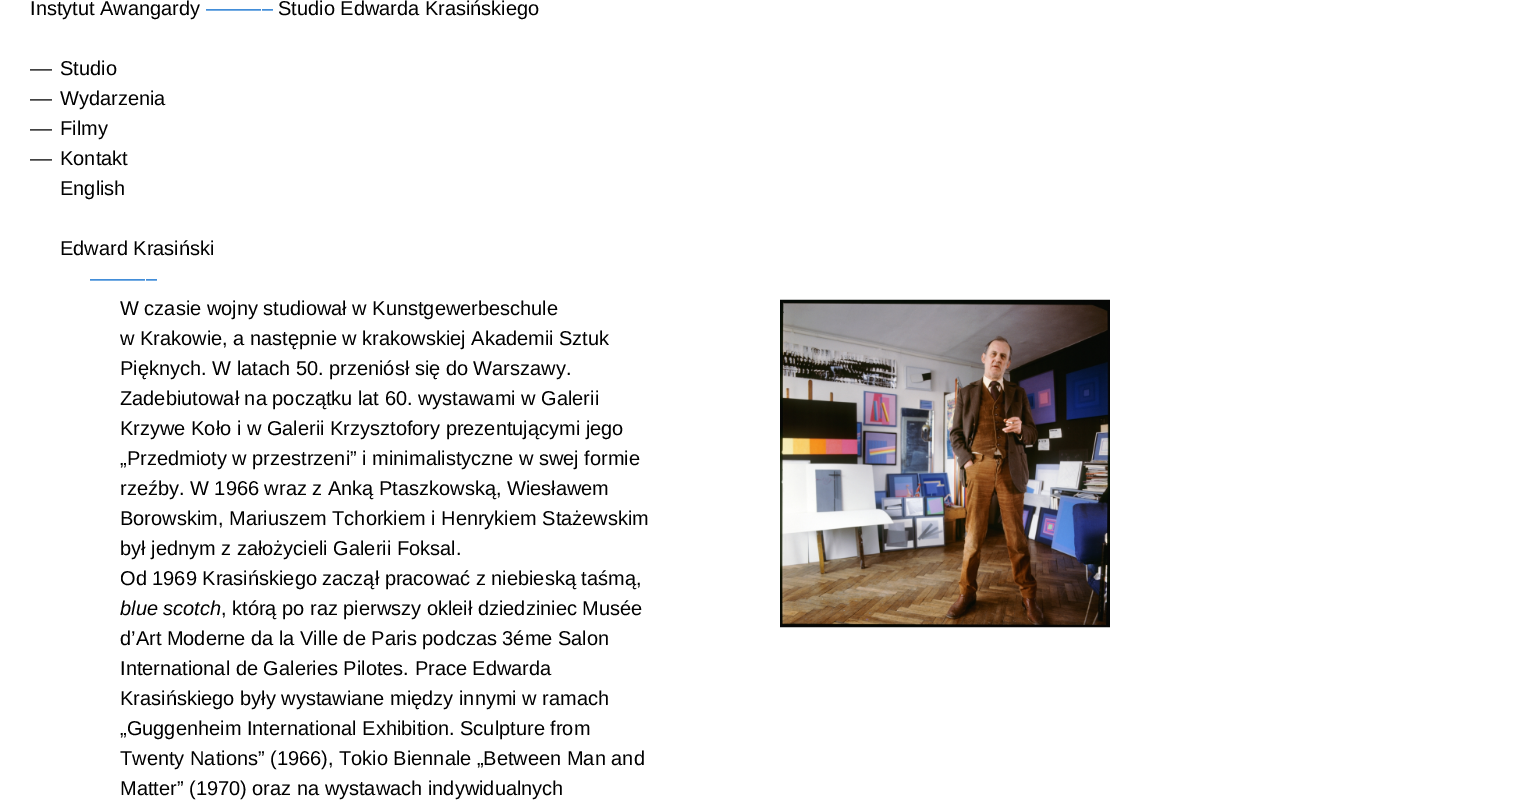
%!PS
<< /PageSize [1532 805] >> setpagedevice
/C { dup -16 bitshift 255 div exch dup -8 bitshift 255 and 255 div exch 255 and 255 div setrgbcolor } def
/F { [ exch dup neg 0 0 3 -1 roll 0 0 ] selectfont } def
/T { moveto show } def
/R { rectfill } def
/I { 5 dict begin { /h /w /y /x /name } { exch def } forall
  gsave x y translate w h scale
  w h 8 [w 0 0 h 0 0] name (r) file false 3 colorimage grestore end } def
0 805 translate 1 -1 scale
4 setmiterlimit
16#FFFFFF C
0 0 1532 805 R
/LiberationSans-Regular 20 F
16#000000 C
(Instytut Awangardy) 30 15 T
16#0066CC C
(––––––) 206 15 T
16#000000 C
(Studio Edwarda Krasińskiego) 278 15 T
(––) 30 75 T
(Studio) 60 75 T
(––) 30 105 T
(Wydarzenia) 60 105 T
(––) 30 135 T
(Filmy) 60 135 T
(––) 30 165 T
(Kontakt) 60 165 T
(English) 60 195 T
(Edward Krasiński) 60 255 T
16#0066CC C
(––––––) 90 285 T
16#000000 C
(W czasie wojny studiował w Kunstgewerbeschule) 120 315 T
(w Krakowie, a następnie w krakowskiej Akademii Sztuk) 120 345 T
(Pięknych. W latach 50. przeniósł się do Warszawy.) 120 375 T
(Zadebiutował na początku lat 60. wystawami w Galerii) 120 405 T
(Krzywe Koło i w Galerii Krzysztofory prezentującymi jego) 120 435 T
(„Przedmioty w przestrzeni” i minimalistyczne w swej formie) 120 465 T
(rzeźby. W 1966 wraz z Anką Ptaszkowską, Wiesławem) 120 495 T
(Borowskim, Mariuszem Tchorkiem i Henrykiem Stażewskim) 120 525 T
(był jednym z założycieli Galerii Foksal.) 120 555 T
(Od 1969 Krasińskiego zaczął pracować z niebieską taśmą,) 120 585 T
/LiberationSans-Italic 20 F
(blue scotch) 120 615 T
/LiberationSans-Regular 20 F
(, którą po raz pierwszy okleił dziedziniec Musée) 221 615 T
(d’Art Moderne da la Ville de Paris podczas 3éme Salon) 120 645 T
(International de Galeries Pilotes. Prace Edwarda) 120 675 T
(Krasińskiego były wystawiane między innymi w ramach) 120 705 T
(„Guggenheim International Exhibition. Sculpture from) 120 735 T
(Twenty Nations” \(1966\), Tokio Biennale „Between Man and) 120 765 T
(Matter” \(1970\) oraz na wystawach indywidualnych) 120 795 T
(1.rgb) 780 299 330 329 I
showpage
